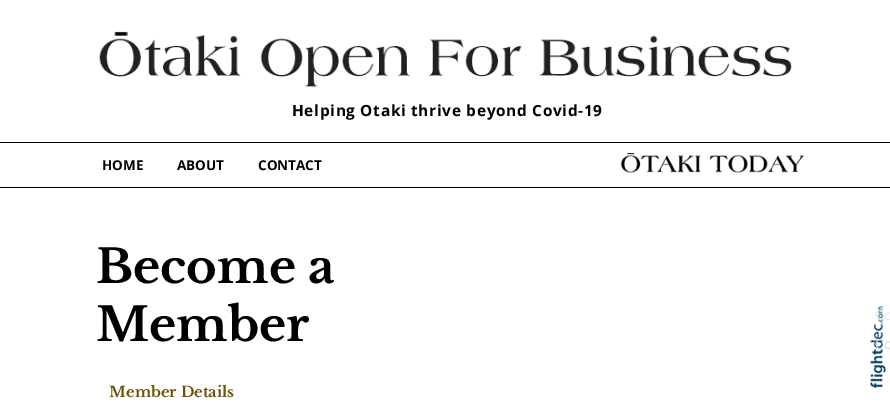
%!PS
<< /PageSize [890 403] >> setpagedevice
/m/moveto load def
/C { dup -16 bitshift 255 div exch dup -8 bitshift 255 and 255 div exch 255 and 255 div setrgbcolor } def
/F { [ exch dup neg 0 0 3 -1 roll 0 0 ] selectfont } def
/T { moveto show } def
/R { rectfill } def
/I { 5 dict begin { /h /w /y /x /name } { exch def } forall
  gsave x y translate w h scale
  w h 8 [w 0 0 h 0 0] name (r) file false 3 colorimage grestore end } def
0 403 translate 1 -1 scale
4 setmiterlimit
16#FFFFFF C
0 0 890 403 R
(1.rgb) 99 31 693 57 I
/OpenSans-Bold 15.4 F
16#000000 C
292 116 m .7 0 (Helping Otaki thrive beyond Covid-19) ashow
0 142 890 1 R
0 187 890 1 R
/OpenSans-Bold 13.5 F
(HOME) 102 170 T
(ABOUT) 177 170 T
(CONTACT) 258 170 T
(2.rgb) 620 153 184 20 I
/LibreBaskerville-Bold 46.5 F
(Become a) 96 283 T
(Member) 96 341 T
/LibreBaskerville-Bold 14.75 F
16#6E5305 C
(Member Details) 109 397 T
(3.rgb) 870 306 16 83 I
/OpenSans-Regular 14 F
16#E0E8EC C
(Co) 875 320 T
16#CFDAE1 C
(Co) 875 349 T
showpage
